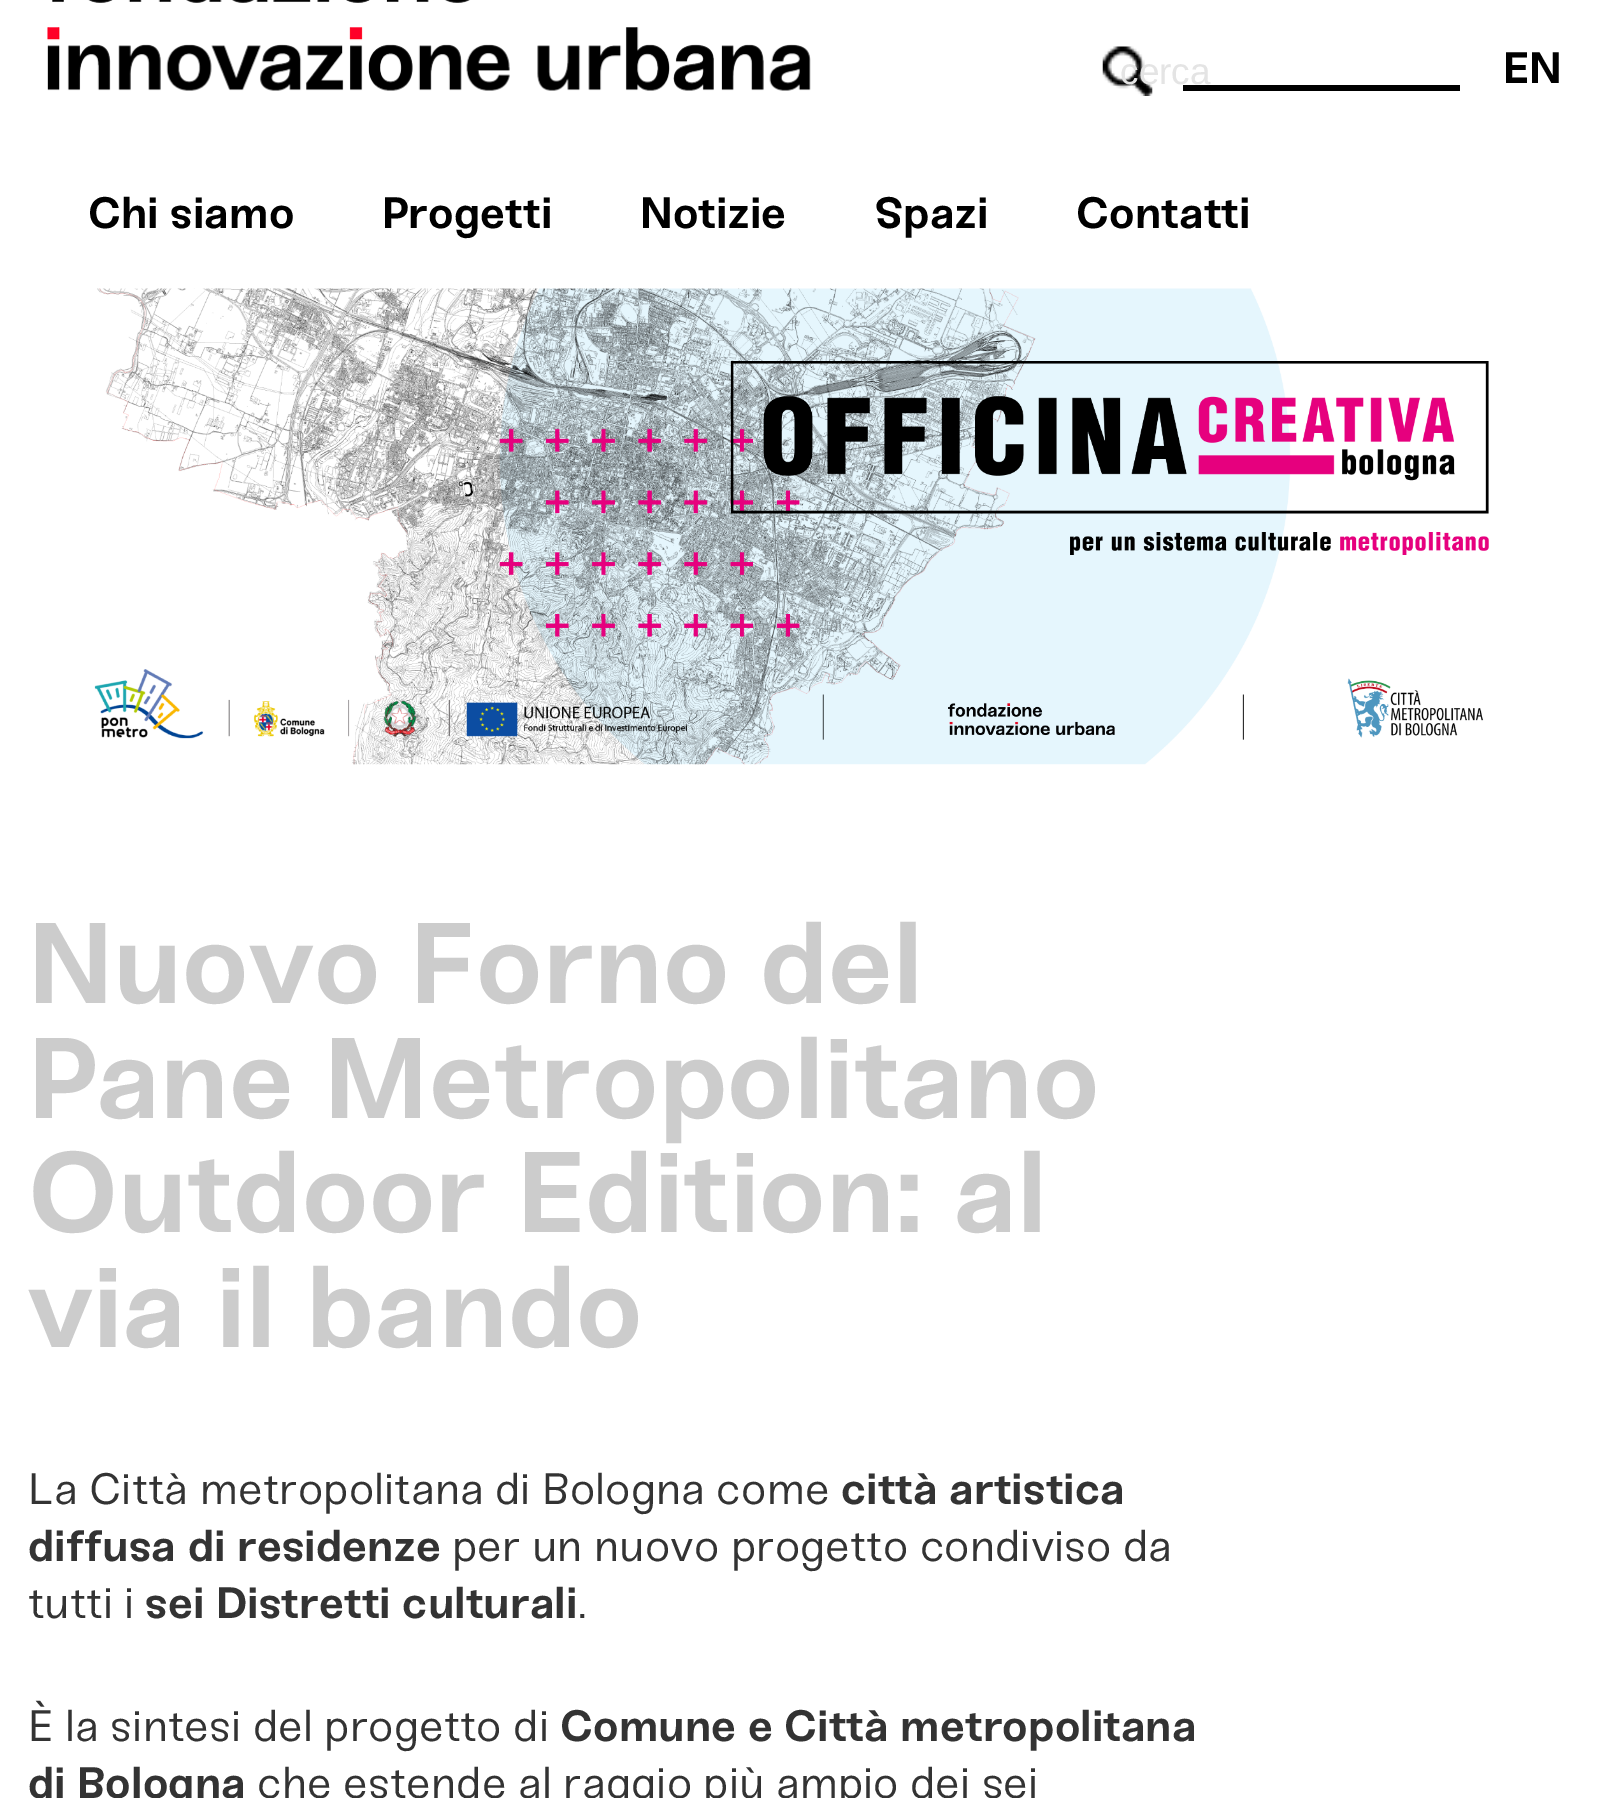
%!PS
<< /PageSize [1618 1798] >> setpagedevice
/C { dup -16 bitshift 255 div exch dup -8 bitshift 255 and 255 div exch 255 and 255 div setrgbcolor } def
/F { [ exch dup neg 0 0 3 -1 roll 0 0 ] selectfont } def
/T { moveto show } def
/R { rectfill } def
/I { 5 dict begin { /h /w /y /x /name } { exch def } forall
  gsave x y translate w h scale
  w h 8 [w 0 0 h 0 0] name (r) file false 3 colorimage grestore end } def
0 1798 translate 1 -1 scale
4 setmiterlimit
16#FFFFFF C
0 0 1618 1798 R
(1.rgb) 47 0 764 91 I
(2.rgb) 1102 46 51 50 I
/LiberationSans-Regular 37 F
16#E4E4E4 C
(cerca) 1120 84 T
16#000000 C
1183 85 277 6 R
/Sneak-Bold 44 F
(EN) 1503 83 T
(Chi siamo) 88 228 T
(Progetti) 382 228 T
(Notizie) 640 228 T
(Spazi) 875 228 T
(Contatti) 1076 228 T
(3.rgb) 94 288 1395 477 I
/Sneak-Bold 114.5 F
16#CCCCCC C
(Nuovo Forno del) 28 1003 T
(Pane Metropolitano) 28 1118 T
(Outdoor Edition: al) 28 1232 T
(via il bando) 28 1347 T
/Sneak-Regular 44 F
16#333333 C
(La Città metropolitana di Bologna come) 28 1504 T
/Sneak-Bold 44 F
(città artistica) 841 1504 T
(diffusa di residenze) 28 1561 T
/Sneak-Regular 44 F
(per un nuovo progetto condiviso da) 452 1561 T
(tutti i) 28 1618 T
/Sneak-Bold 44 F
(sei Distretti culturali) 145 1618 T
/Sneak-Regular 44 F
(.) 578 1618 T
(È la sintesi del progetto di) 28 1741 T
/Sneak-Bold 44 F
(Comune e Città metropolitana) 560 1741 T
(di Bologna) 28 1798 T
/Sneak-Regular 44 F
(che estende al raggio più ampio dei sei) 257 1798 T
showpage
